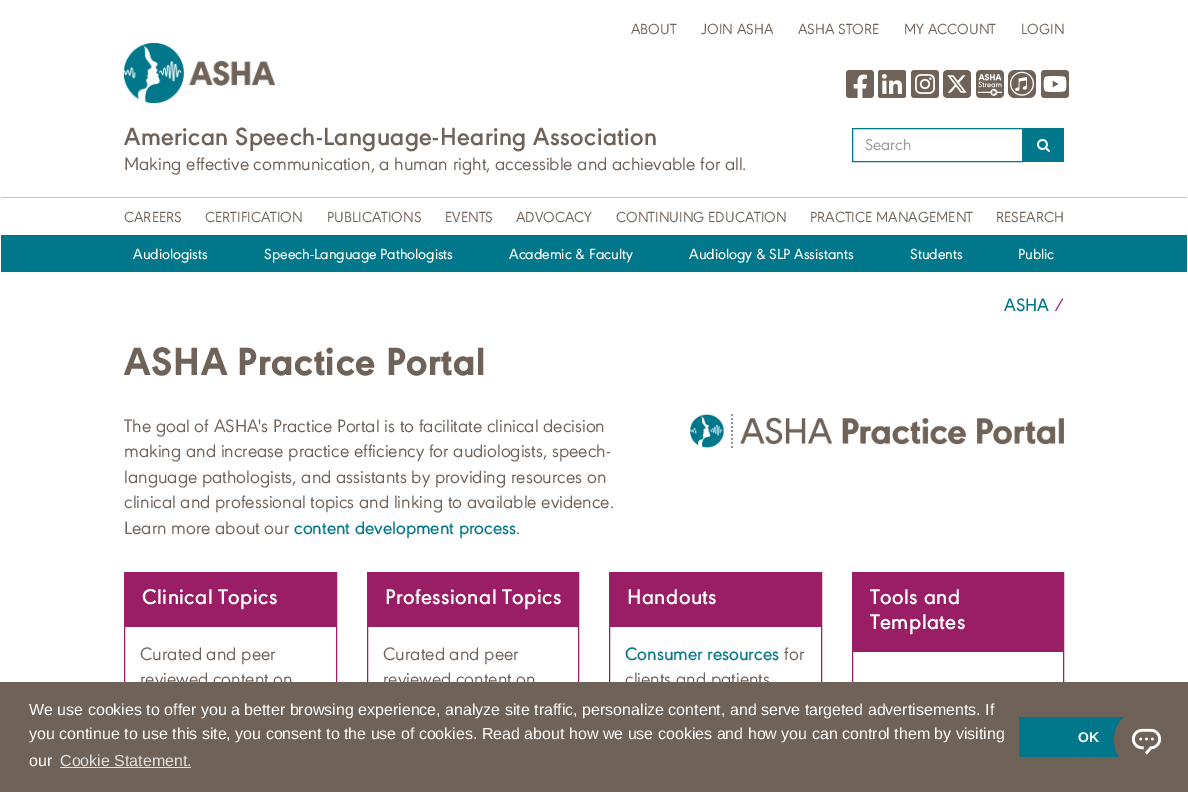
%!PS
<< /PageSize [1188 792] >> setpagedevice
/m/moveto load def
/f/fill load def
/C { dup -16 bitshift 255 div exch dup -8 bitshift 255 and 255 div exch 255 and 255 div setrgbcolor } def
/F { [ exch dup neg 0 0 3 -1 roll 0 0 ] selectfont } def
/T { moveto show } def
/R { rectfill } def
/O { newpath 0 360 arc closepath } def
/I { 5 dict begin { /h /w /y /x /name } { exch def } forall
  gsave x y translate w h scale
  w h 8 [w 0 0 h 0 0] name (r) file false 3 colorimage grestore end } def
0 792 translate 1 -1 scale
4 setmiterlimit
16#FFFFFF C
0 0 1188 792 R
/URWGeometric-Regular 13 F
16#6E6259 C
(ABOUT) 631 34 T
(JOIN ASHA) 701 34 T
(ASHA STORE) 798 34 T
(MY ACCOUNT) 904 34 T
(LOGIN) 1021 34 T
(1.rgb) 124 43 151 60 I
(2.rgb) 846 70 28 28 I
(3.rgb) 878 70 28 28 I
(4.rgb) 911 70 28 28 I
(5.rgb) 943 70 28 28 I
(6.rgb) 976 70 28 28 I
(7.rgb) 1008 70 28 28 I
(8.rgb) 1041 70 28 28 I
/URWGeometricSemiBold-SemiBold 22 F
124 145 m .45 0 (American Speech-Language-Hearing Association) ashow
/URWGeometric-Regular 16 F
(Making effective communication, a human right, accessible and achievable for all.) 124 170 T
16#00778B C
852.5 128.5 170 33 rectstroke
/URWGeometric-Regular 14 F
16#999999 C
(Search) 865 150 T
16#00778B C
1023 128 41 34 R
(9.rgb) 1037 139 13 13 I
16#CBC6C3 C
1 197 1186 1 R
/URWGeometric-Regular 13 F
16#6E6259 C
(CAREERS) 124 222 T
(CERTIFICATION) 205 222 T
(PUBLICATIONS) 327 222 T
(EVENTS) 445 222 T
(ADVOCACY) 516 222 T
(CONTINUING EDUCATION) 616 222 T
(PRACTICE MANAGEMENT) 810 222 T
(RESEARCH) 996 222 T
16#00778B C
1 235 1186 37 R
/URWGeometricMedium-Medium 13 F
16#FFFFFF C
(Audiologists) 133 259 T
(Speech-Language Pathologists) 264 259 T
(Academic & Faculty) 509 259 T
(Audiology & SLP Assistants) 689 259 T
(Students) 910 259 T
(Public) 1018 259 T
/URWGeometricMedium-Medium 16 F
16#00778B C
(ASHA) 1004 311 T
/URWGeometric-Regular 16 F
16#991E66 C
(/) 1054 311 T
/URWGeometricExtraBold-ExtraBold 35 F
16#6E6259 C
124 375 m .7 0 (ASHA Practice Portal) ashow
/URWGeometric-Regular 16 F
(The goal of ASHA's Practice Portal is to facilitate clinical decision) 124 432 T
(making and increase practice efficiency for audiologists, speech-) 124 457 T
(language pathologists, and assistants by providing resources on) 124 483 T
(clinical and professional topics and linking to available evidence.) 124 508 T
(Learn more about our) 124 534 T
/URWGeometricMedium-Medium 16 F
16#00778B C
(content development process) 294 534 T
/URWGeometric-Regular 16 F
16#6E6259 C
(.) 516 534 T
(10.rgb) 690 414 374 34 I
16#991E66 C
124.5 572.5 212 162 rectstroke
125 573 211 54 R
/URWGeometricSemiBold-SemiBold 19 F
16#FFFFFF C
142 604 m .4 0 (Clinical Topics) ashow
/URWGeometric-Regular 16 F
16#6E6259 C
(Curated and peer) 140 660 T
(reviewed content on) 140 685 T
16#991E66 C
367.5 572.5 211 162 rectstroke
368 573 210 54 R
/URWGeometricSemiBold-SemiBold 19 F
16#FFFFFF C
385 604 m .4 0 (Professional Topics) ashow
/URWGeometric-Regular 16 F
16#6E6259 C
(Curated and peer) 383 660 T
(reviewed content on) 383 685 T
16#991E66 C
609.5 572.5 212 136 rectstroke
610 573 211 54 R
/URWGeometricSemiBold-SemiBold 19 F
16#FFFFFF C
627 604 m .4 0 (Handouts) ashow
/URWGeometricMedium-Medium 16 F
16#00778B C
(Consumer resources) 625 660 T
/URWGeometric-Regular 16 F
16#6E6259 C
(for) 784 660 T
(clients and patients) 625 685 T
16#991E66 C
852.5 572.5 211 161 rectstroke
853 573 210 79 R
/URWGeometricSemiBold-SemiBold 19 F
16#FFFFFF C
870 604 m .4 0 (Tools and) ashow
870 629 m .4 0 (Templates) ashow
16#6E6259 C
0 682 1188 110 R
/LiberationSans-Regular 16 F
16#FFFFFF C
(We use cookies to offer you a better browsing experience, analyze site traffic, personalize content, and serve targeted advertisements. If) 29 715 T
(you continue to use this site, you consent to the use of cookies. Read about how we use cookies and how you can control them by visiting) 29 739 T
(our) 29 766 T
16#E2E0DE C
(Cookie Statement.) 60 766 T
60 767 131 1 R
16#00778B C
1019 717 105 40 R
/LiberationSans-Bold 14 F
16#FFFFFF C
(OK) 1078 742 T
16#6E6259 C
1146 740 32 O f
(11.rgb) 1131 728 31 27 I
showpage
